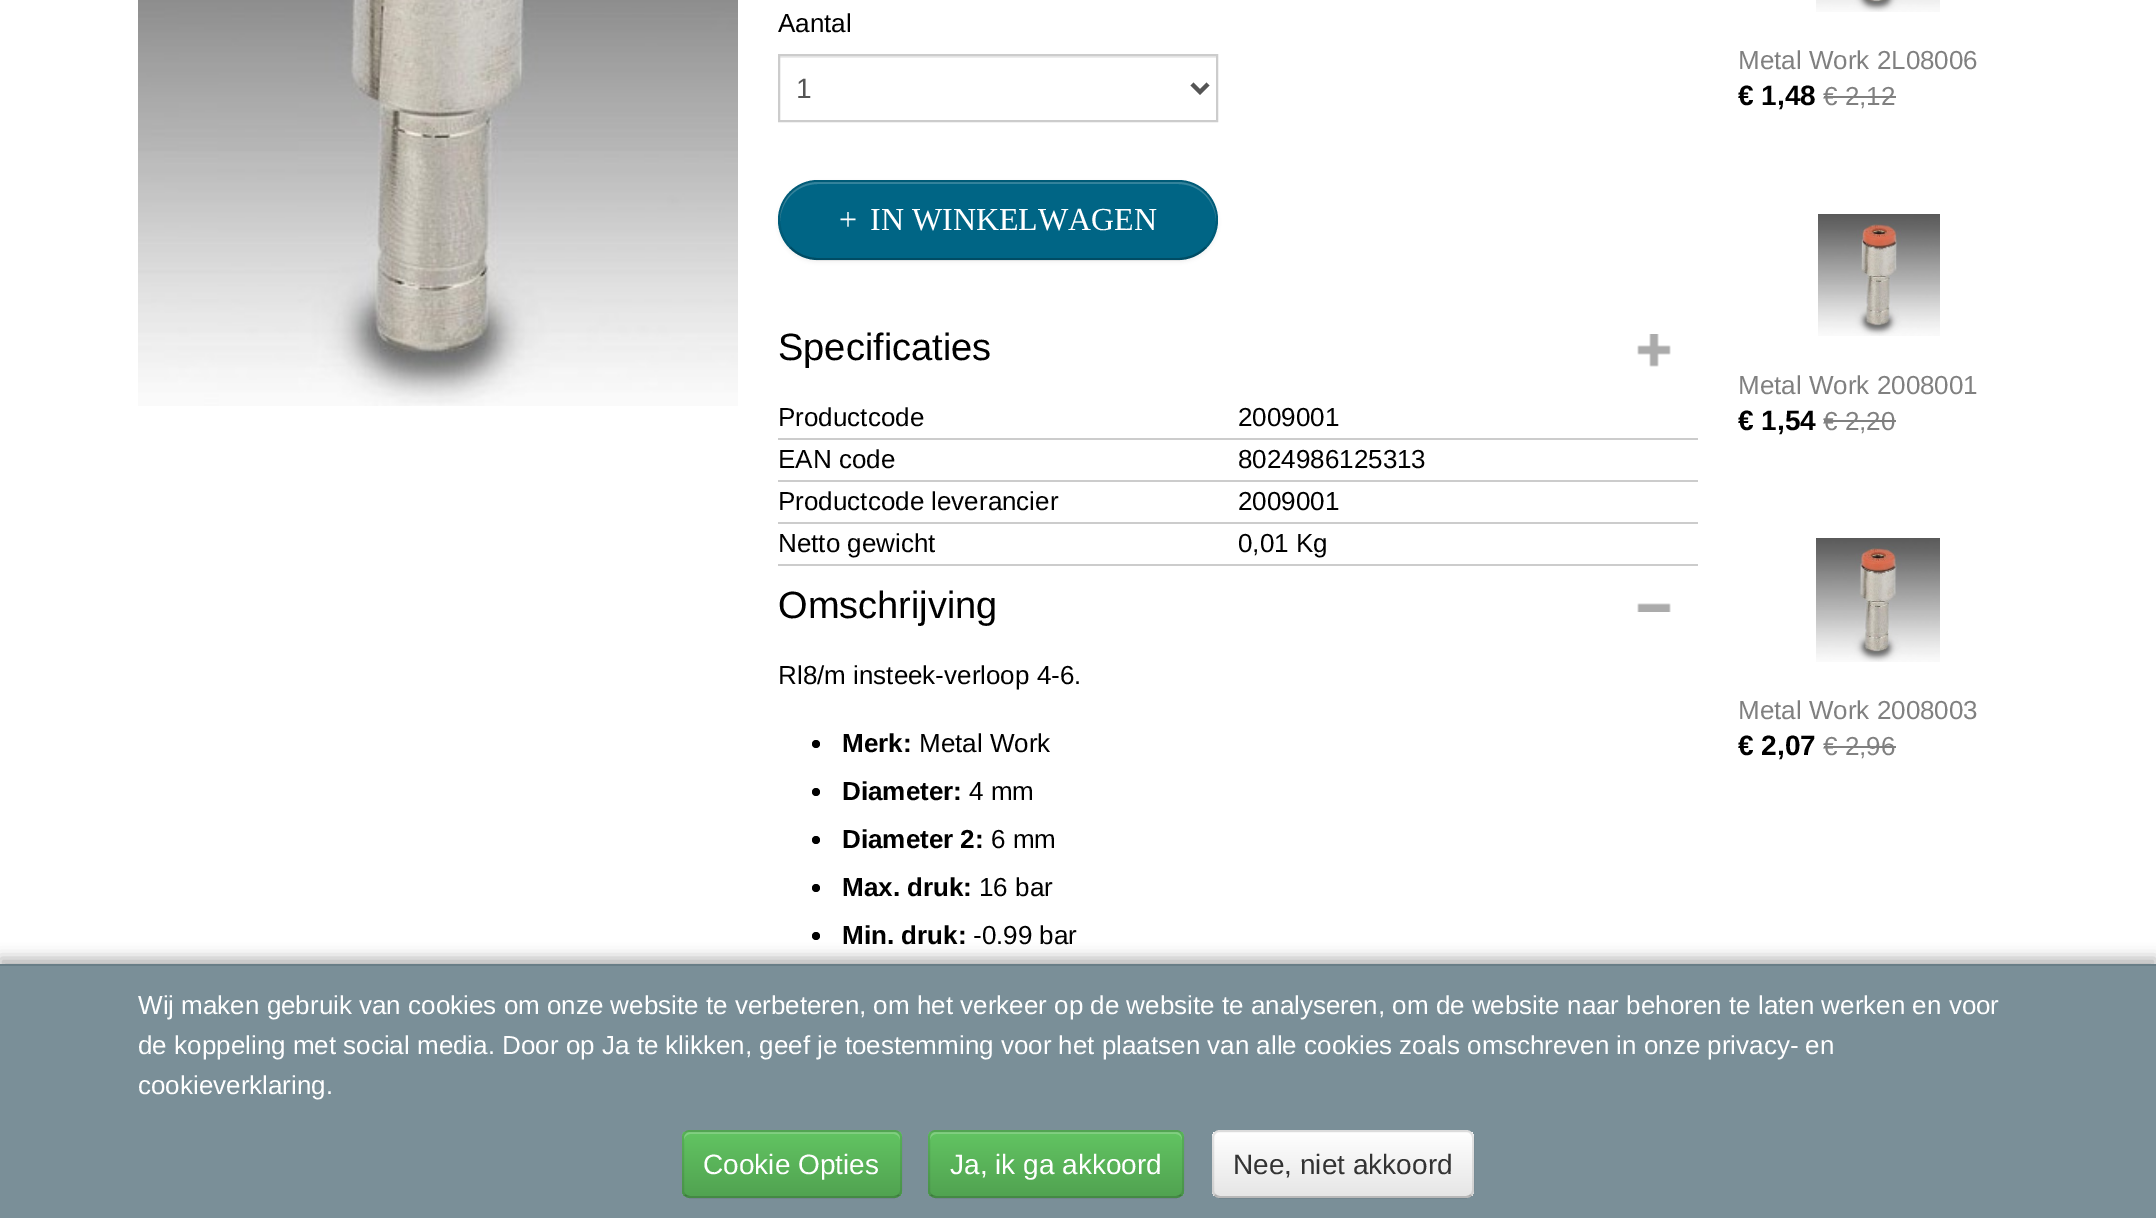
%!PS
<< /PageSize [2156 1218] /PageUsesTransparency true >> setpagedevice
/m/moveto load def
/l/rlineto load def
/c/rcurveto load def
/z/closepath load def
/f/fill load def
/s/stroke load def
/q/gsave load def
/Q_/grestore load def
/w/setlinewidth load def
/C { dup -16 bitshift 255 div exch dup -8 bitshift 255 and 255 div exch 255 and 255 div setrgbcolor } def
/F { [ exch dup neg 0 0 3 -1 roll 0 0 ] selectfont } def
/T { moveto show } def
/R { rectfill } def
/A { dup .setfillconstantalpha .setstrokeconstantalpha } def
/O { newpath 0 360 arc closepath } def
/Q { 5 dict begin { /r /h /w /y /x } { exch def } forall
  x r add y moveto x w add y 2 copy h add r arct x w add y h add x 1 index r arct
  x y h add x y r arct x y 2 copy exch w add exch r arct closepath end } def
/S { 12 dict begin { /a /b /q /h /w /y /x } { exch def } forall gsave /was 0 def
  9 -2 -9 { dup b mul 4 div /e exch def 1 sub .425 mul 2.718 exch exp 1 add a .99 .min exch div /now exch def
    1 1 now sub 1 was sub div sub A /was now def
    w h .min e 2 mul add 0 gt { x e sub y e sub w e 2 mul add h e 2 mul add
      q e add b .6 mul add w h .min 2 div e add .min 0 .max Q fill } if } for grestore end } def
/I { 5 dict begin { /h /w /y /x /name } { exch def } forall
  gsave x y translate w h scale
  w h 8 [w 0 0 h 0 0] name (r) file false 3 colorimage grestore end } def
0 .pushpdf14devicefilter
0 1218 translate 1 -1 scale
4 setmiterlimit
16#FFFFFF C
0 0 2156 1218 R
(1.rgb) 138 0 600 406 I
/LiberationSans-Regular 26 F
16#000000 C
(Aantal) 778 32 T
16#ECECEC C
780 56 436 2 R
16#CCCCCC C
2 w
779 55 438 66 rectstroke
16#555555 C
4 w
1192 84 m 8 8 l 8 -8 l s
/LiberationSans-Regular 28 F
(1) 796 98 T
16#000000 C
778 182 440 80 40 2 .05 S
16#006585 C
778 180 440 80 40 Q f
16#33849D C
818 184 m 360 0 l 21 0 37 16 38 37 c 0 -1 l 0 -21 -17 -38 -38 -38 c -360 0 l -21 0 -38 17 -38 38 c 0 1 l 1 -21 17 -37 38 -37 c z f
0.25 A
16#000000 C
2 w
1205.5 247.5 m -7 7.5 -17 11.5 -27.5 11.5 c -360 0 l -10.5 0 -20.5 -4 -27.5 -11.5 c s
0.1 A
790.5 247.5 m -9 -9 -13.5 -22.5 -10.5 -35 c 3.5 -18 19.5 -31.5 38 -31.5 c 360 0 l 18.5 0 34.5 13.5 38 31.5 c 3 12.5 -1.5 26 -10.5 35 c s
/LiberationSerif-Regular 32 F
1 A
16#FFFFFF C
(+) 839 230 T
(IN WINKELWAGEN) 870 230 T
16#CCCCCC C
778 564 920 2 R
(2.rgb) 1637 334 34 33 I
/LiberationSans-Regular 38 F
16#000000 C
(Specificaties) 778 360 T
16#CCCCCC C
778 438 920 2 R
/LiberationSans-Regular 26 F
16#000000 C
(Productcode) 778 426 T
(2009001) 1238 426 T
16#CCCCCC C
778 480 920 2 R
16#000000 C
(EAN code) 778 468 T
(8024986125313) 1238 468 T
16#CCCCCC C
778 522 920 2 R
16#000000 C
(Productcode leverancier) 778 510 T
(2009001) 1238 510 T
(Netto gewicht) 778 552 T
(0,01 Kg) 1238 552 T
(3.rgb) 1637 603 34 9 I
/LiberationSans-Regular 38 F
(Omschrijving) 778 618 T
/LiberationSans-Regular 26 F
(Rl8/m insteek-verloop 4-6.) 778 684 T
816 744 4 O f
/LiberationSans-Bold 26 F
(Merk:) 842 752 T
/LiberationSans-Regular 26 F
(Metal Work) 919 752 T
816 792 4 O f
/LiberationSans-Bold 26 F
(Diameter:) 842 800 T
/LiberationSans-Regular 26 F
(4 mm) 969 800 T
816 840 4 O f
/LiberationSans-Bold 26 F
(Diameter 2:) 842 848 T
/LiberationSans-Regular 26 F
(6 mm) 991 848 T
816 888 4 O f
/LiberationSans-Bold 26 F
(Max. druk:) 842 896 T
/LiberationSans-Regular 26 F
(16 bar) 979 896 T
816 936 4 O f
/LiberationSans-Bold 26 F
(Min. druk:) 842 944 T
/LiberationSans-Regular 26 F
(-0.99 bar) 973 944 T
(4.rgb) 1816 0 124 12 I
16#808080 C
(Metal Work 2L08006) 1738 69 T
/LiberationSans-Bold 28 F
16#000000 C
(€ 1,48) 1738 105 T
/LiberationSans-Regular 26 F
16#808080 C
(€ 2,12) 1823 105 T
1824 96 72 2 R
(5.rgb) 1818 214 122 122 I
(Metal Work 2008001) 1738 394 T
/LiberationSans-Bold 28 F
16#000000 C
(€ 1,54) 1738 430 T
/LiberationSans-Regular 26 F
16#808080 C
(€ 2,20) 1823 430 T
1824 420 72 2 R
(6.rgb) 1816 538 124 124 I
(Metal Work 2008003) 1738 719 T
/LiberationSans-Bold 28 F
16#000000 C
(€ 2,07) 1738 755 T
/LiberationSans-Regular 26 F
16#808080 C
(€ 2,96) 1823 755 T
1824 746 72 2 R
16#000000 C
0 958 2156 254 0 7 .3 S
16#7A8F98 C
0 966 2156 252 R
16#697E87 C
0 964 2156 2 R
16#FFFFFF C
(Wij maken gebruik van cookies om onze website te verbeteren, om het verkeer op de website te analyseren, om de website naar behoren te laten werken en voor) 138 1014 T
(de koppeling met social media. Door op Ja te klikken, geef je toestemming voor het plaatsen van alle cookies zoals omschreven in onze privacy- en) 138 1054 T
(cookieverklaring.) 138 1094 T
16#5BB75B C
682 1130 220 68 8 Q f
q
682 1130 220 68 8 Q clip newpath
q 682 1132 m 220 0 l 0 64 l -220 0 l z clip newpath
<< /ShadingType 2 /ColorSpace /DeviceRGB /Coords [792 1132 792 1196] /Extend [true true] /Function << /FunctionType 2 /Domain [0 1] /C0 [.384 .769 .384] /C1 [.318 .639 .318] /N 1 >> >> shfill Q_
Q_
0.2 A
16#FFFFFF C
690 1134 m 204 0 l 3 0 6 3 6 6 c 0 -2 l 0 -3 -3 -6 -6 -6 c -204 0 l -3 0 -6 3 -6 6 c 0 2 l 0 -3 3 -6 6 -6 c z f
0.25 A
16#000000 C
899 1195 m -1.5 1.5 -3 2 -5 2 c -204 0 l -2 0 -3.5 -.5 -5 -2 c s
0.1 A
685 1195 m -1.5 -1.5 -2 -3 -2 -5 c 0 -52 l 0 -2 .5 -3.5 2 -5 c 1.5 -1.5 3 -2 5 -2 c 204 0 l 2 0 3.5 .5 5 2 c 1.5 1.5 2 3 2 5 c 0 52 l 0 2 -.5 3.5 -2 5 c s
/LiberationSans-Regular 28 F
1 A
16#FFFFFF C
(Cookie Opties) 703 1174 T
16#5BB75B C
928 1130 256 68 8 Q f
q
928 1130 256 68 8 Q clip newpath
q 928 1132 m 256 0 l 0 64 l -256 0 l z clip newpath
<< /ShadingType 2 /ColorSpace /DeviceRGB /Coords [1056 1132 1056 1196] /Extend [true true] /Function << /FunctionType 2 /Domain [0 1] /C0 [.384 .769 .384] /C1 [.318 .639 .318] /N 1 >> >> shfill Q_
Q_
16#81CF81 C
936 1134 m 240 0 l 3 0 6 3 6 6 c 0 -3 -1 -7 -5 -8 c -241 0 l -5 0 -6 4 -6 8 c 0 -3 3 -6 6 -6 c z f
0.25 A
16#000000 C
1181 1195 m -1.5 1.5 -3 2 -5 2 c -240 0 l -2 0 -3.5 -.5 -5 -2 c s
0.1 A
931 1195 m -1.5 -1.5 -2 -3 -2 -5 c 0 -52 l 0 -2 .5 -3.5 2 -5 c 1.5 -1.5 3 -2 5 -2 c 240 0 l 2 0 3.5 .5 5 2 c 1.5 1.5 2 3 2 5 c 0 52 l 0 2 -.5 3.5 -2 5 c s
1 A
16#FFFFFF C
(Ja, ik ga akkoord) 950 1174 T
16#F5F5F5 C
1212 1130 262 68 8 Q f
q
1212 1130 262 68 8 Q clip newpath
q 1212 1132 m 262 0 l 0 64 l -262 0 l z clip newpath
<< /ShadingType 2 /ColorSpace /DeviceRGB /Coords [1343 1132 1343 1196] /Extend [true true] /Function << /FunctionType 2 /Domain [0 1] /C0 [1 1 1] /C1 [.902 .902 .902] /N 1 >> >> shfill Q_
Q_
0.25 A
16#000000 C
1471 1195 m -1.5 1.5 -3 2 -5 2 c -246 0 l -2 0 -3.5 -.5 -5 -2 c s
0.1 A
1215 1195 m -1.5 -1.5 -2 -3 -2 -5 c 0 -52 l 0 -2 .5 -3.5 2 -5 c 1.5 -1.5 3 -2 5 -2 c 246 0 l 2 0 3.5 .5 5 2 c 1.5 1.5 2 3 2 5 c 0 52 l 0 2 -.5 3.5 -2 5 c s
1 A
16#333333 C
(Nee, niet akkoord) 1233 1174 T
.poppdf14devicefilter showpage
